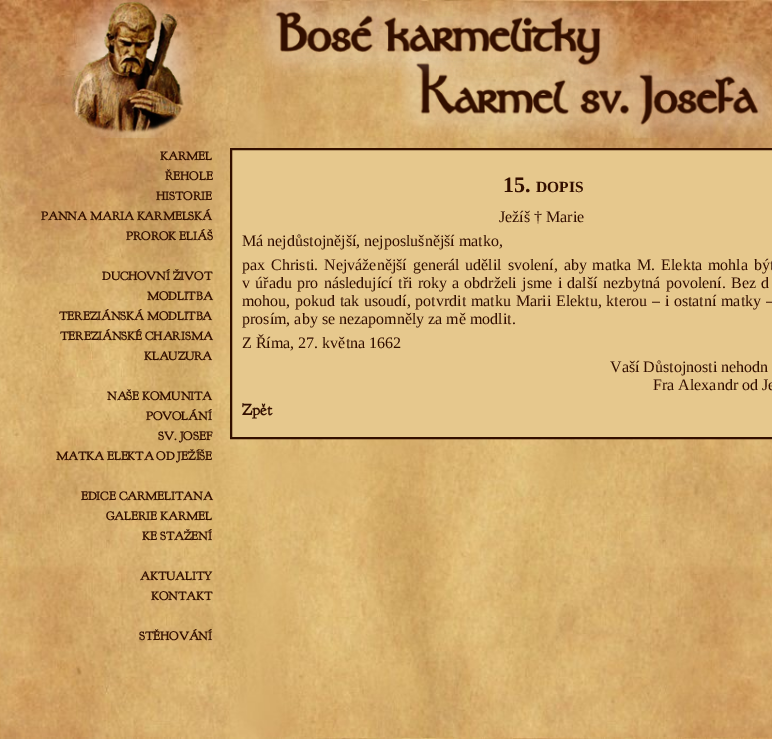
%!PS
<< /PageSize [772 739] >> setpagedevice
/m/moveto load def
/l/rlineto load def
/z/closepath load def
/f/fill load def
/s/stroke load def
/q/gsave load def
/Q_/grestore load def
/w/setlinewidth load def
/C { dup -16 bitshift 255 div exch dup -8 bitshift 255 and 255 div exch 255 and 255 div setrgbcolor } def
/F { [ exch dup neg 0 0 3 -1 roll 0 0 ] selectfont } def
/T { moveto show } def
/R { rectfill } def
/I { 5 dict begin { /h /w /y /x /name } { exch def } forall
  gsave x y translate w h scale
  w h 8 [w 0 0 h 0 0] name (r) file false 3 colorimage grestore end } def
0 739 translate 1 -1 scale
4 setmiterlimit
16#FFFFFF C
0 0 772 739 R
(1.rgb) 0 0 772 739 I
(2.rgb) 64 0 708 138 I
/GoudyBookletter1911-Bold 12 F
16#330F00 C
(KARMEL) 160 160 T
(ŘEHOLE) 165 180 T
(HISTORIE) 156 200 T
(PANNA MARIA KARMELSKÁ) 41 220 T
(PROROK ELIÁŠ) 126 240 T
(DUCHOVNÍ ŽIVOT) 102 280 T
(MODLITBA) 147 300 T
(TEREZIÁNSKÁ MODLITBA) 59 320 T
(TEREZIÁNSKÉ CHARISMA) 60 340 T
(KLAUZURA) 144 360 T
(NAŠE KOMUNITA) 107 400 T
(POVOLÁNÍ) 146 420 T
(SV. JOSEF) 158 440 T
(MATKA ELEKTA OD JEŽÍŠE) 56 460 T
(EDICE CARMELITANA) 81 500 T
(GALERIE KARMEL) 106 520 T
(KE STAŽENÍ) 142 540 T
(AKTUALITY) 140 580 T
(KONTAKT) 151 600 T
(STĚHOVÁNÍ) 139 640 T
16#E6C88D C
231 149 m 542 0 l 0 289 l -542 0 l z q f Q_
16#330F00 C
2 w
s
/LiberationSerif-Bold 22 F
(15.) 503 192 T
/LiberationSerif-Bold 15.5 F
(DOPIS) 536 192 T
/LiberationSerif-Regular 16 F
(Ježíš † Marie) 499 222 T
(Má nejdůstojnější, nejposlušnější matko,) 242 246 T
242 270 m 1.75 0 32 (pax Christi. Nejváženější generál udělil svolení, aby matka M. Elekta mohla být) widthshow
242 288 m 1.25 0 32 (v úřadu pro následující tři roky a obdrželi jsme i další nezbytná povolení. Bez d) widthshow
242 306 m .7 0 32 (mohou, pokud tak usoudí, potvrdit matku Marii Elektu, kterou – i ostatní matky –) widthshow
(prosím, aby se nezapomněly za mě modlit.) 242 324 T
(Z Říma, 27. května 1662) 242 348 T
(Vaší Důstojnosti nehodn) 610 372 T
(Fra Alexandr od Je) 653 390 T
/GoudyBookletter1911-Bold 16 F
(Zpět) 242 415 T
showpage
